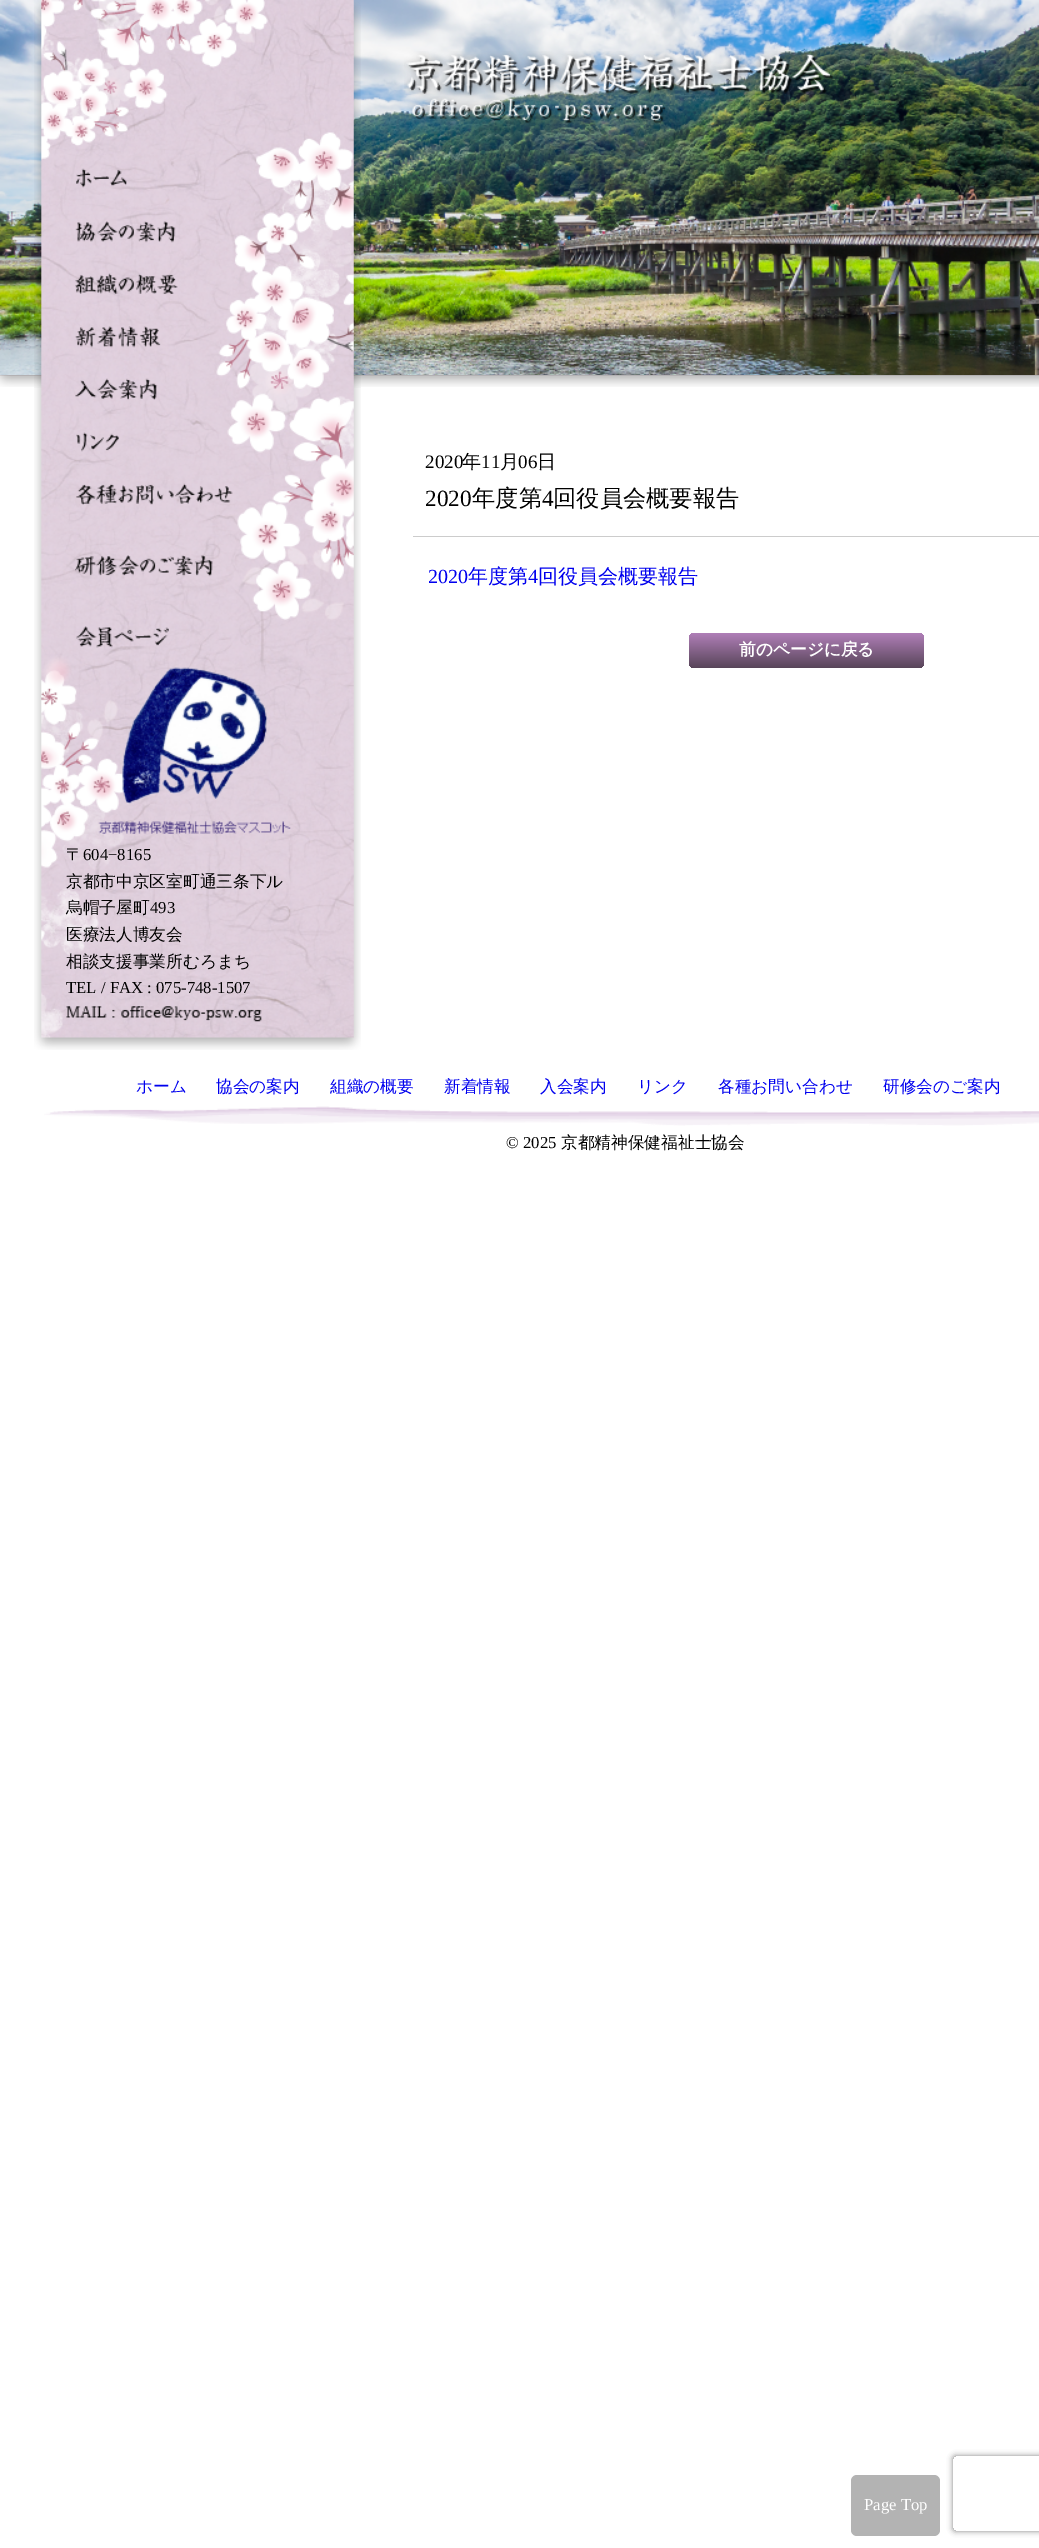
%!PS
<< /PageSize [1039 2548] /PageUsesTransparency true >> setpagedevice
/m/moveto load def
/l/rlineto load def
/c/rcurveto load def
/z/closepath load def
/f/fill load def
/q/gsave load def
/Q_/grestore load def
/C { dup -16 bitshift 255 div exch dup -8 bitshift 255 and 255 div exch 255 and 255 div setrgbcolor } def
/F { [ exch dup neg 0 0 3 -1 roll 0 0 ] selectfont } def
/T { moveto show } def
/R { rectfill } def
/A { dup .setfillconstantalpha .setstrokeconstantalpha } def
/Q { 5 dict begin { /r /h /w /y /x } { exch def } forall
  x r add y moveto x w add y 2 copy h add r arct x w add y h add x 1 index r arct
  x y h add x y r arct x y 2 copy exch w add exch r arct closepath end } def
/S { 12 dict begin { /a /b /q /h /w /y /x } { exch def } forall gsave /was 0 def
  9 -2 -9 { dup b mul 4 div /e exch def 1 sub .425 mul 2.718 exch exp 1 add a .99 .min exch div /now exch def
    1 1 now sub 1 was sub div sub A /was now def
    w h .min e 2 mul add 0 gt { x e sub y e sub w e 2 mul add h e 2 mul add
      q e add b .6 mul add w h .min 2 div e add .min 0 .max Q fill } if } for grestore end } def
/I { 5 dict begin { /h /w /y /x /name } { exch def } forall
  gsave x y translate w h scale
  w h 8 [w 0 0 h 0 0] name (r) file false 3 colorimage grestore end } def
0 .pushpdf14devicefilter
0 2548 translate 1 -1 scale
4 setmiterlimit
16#FFFFFF C
0 0 1039 2548 R
(1.rgb) 0 375 1039 12 I
(2.rgb) 0 0 1039 375 I
(3.rgb) 404 51 429 73 I
/LiberationSerif-Regular 19 F
16#000000 C
(2020) 425 468 T
/WenQuanYiZenHei-Medium 19 F
(年) 462 468 T
/LiberationSerif-Regular 19 F
(11) 481 468 T
/WenQuanYiZenHei-Medium 19 F
(月) 500 468 T
/LiberationSerif-Regular 19 F
(06) 518 468 T
/WenQuanYiZenHei-Medium 19 F
(日) 537 468 T
/LiberationSerif-Regular 23.25 F
(2020) 425 506 T
/WenQuanYiZenHei-Medium 23.25 F
(年度第) 472 506 T
/LiberationSerif-Regular 23.25 F
(4) 542 506 T
/WenQuanYiZenHei-Medium 23.25 F
(回役員会概要報告) 553 506 T
16#CCCCCC C
413 536 626 1 R
/LiberationSerif-Regular 20 F
16#0000EE C
(2020) 428 583 T
/WenQuanYiZenHei-Medium 20 F
(年度第) 468 583 T
/LiberationSerif-Regular 20 F
(4) 528 583 T
/WenQuanYiZenHei-Medium 20 F
(回役員会概要報告) 538 583 T
q 689 633 235 35 6 Q clip newpath
<< /ShadingType 2 /ColorSpace /DeviceRGB /Coords [806 633 806 668] /Extend [true true] /Function << /FunctionType 2 /Domain [0 1] /C0 [.69 .498 .722] /C1 [.345 .271 .349] /N 1 >> >> shfill Q_
/WenQuanYiZenHei-Bold 16.7 F
16#FFFFFF C
(前のページに戻る) 739 655 T
(4.rgb) 34 0 327 1050 I
(5.rgb) 76 168 51 20 I
(6.rgb) 75 221 101 22 I
(7.rgb) 75 273 103 21 I
(8.rgb) 75 326 86 22 I
(9.rgb) 75 378 83 22 I
(10.rgb) 76 432 43 20 I
(11.rgb) 76 483 157 22 I
(12.rgb) 75 555 138 22 I
(13.rgb) 76 626 93 22 I
(14.rgb) 98 667 193 167 I
/WenQuanYiZenHei-Medium 16.7 F
16#000000 C
(〒) 66 860 T
/LiberationSerif-Regular 16.7 F
(604−8165) 83 860 T
/WenQuanYiZenHei-Medium 16.7 F
(京都市中京区室町通三条下ル) 66 887 T
(烏帽子屋町) 66 913 T
/LiberationSerif-Regular 16.7 F
(493) 150 913 T
/WenQuanYiZenHei-Medium 16.7 F
(医療法人博友会) 66 940 T
(相談支援事業所むろまち) 66 967 T
/LiberationSerif-Regular 16.7 F
(TEL / FAX : 075-748-1507) 66 993 T
(15.rgb) 66 1006 196 16 I
/WenQuanYiZenHei-Medium 16.7 F
16#0000EE C
(ホーム) 136 1092 T
(協会の案内) 216 1092 T
(組織の概要) 330 1092 T
(新着情報) 444 1092 T
(入会案内) 540 1092 T
(リンク) 637 1092 T
(各種お問い合わせ) 718 1092 T
(研修会のご案内) 883 1092 T
(16.rgb) 44 1106 995 20 I
/LiberationSerif-Regular 16.7 F
16#000000 C
(© 2025) 506 1148 T
/WenQuanYiZenHei-Medium 16.7 F
(京都精神保健福祉士協会) 561 1148 T
16#B3B3B3 C
851 2475 89 61 6 Q f
/LiberationSerif-Regular 16.7 F
16#FFFFFF C
(Page Top) 864 2510 T
q
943 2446 m 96 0 l 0 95 l -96 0 l z 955.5 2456 m 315 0 l 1.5 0 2.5 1 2.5 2.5 c 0 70 l 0 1.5 -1 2.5 -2.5 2.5 c -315 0 l -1.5 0 -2.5 -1 -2.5 -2.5 c 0 -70 l 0 -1.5 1 -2.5 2.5 -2.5 c z eoclip newpath
16#808080 C
953 2456 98 75 2.5 3 1 S
Q_
.poppdf14devicefilter showpage
